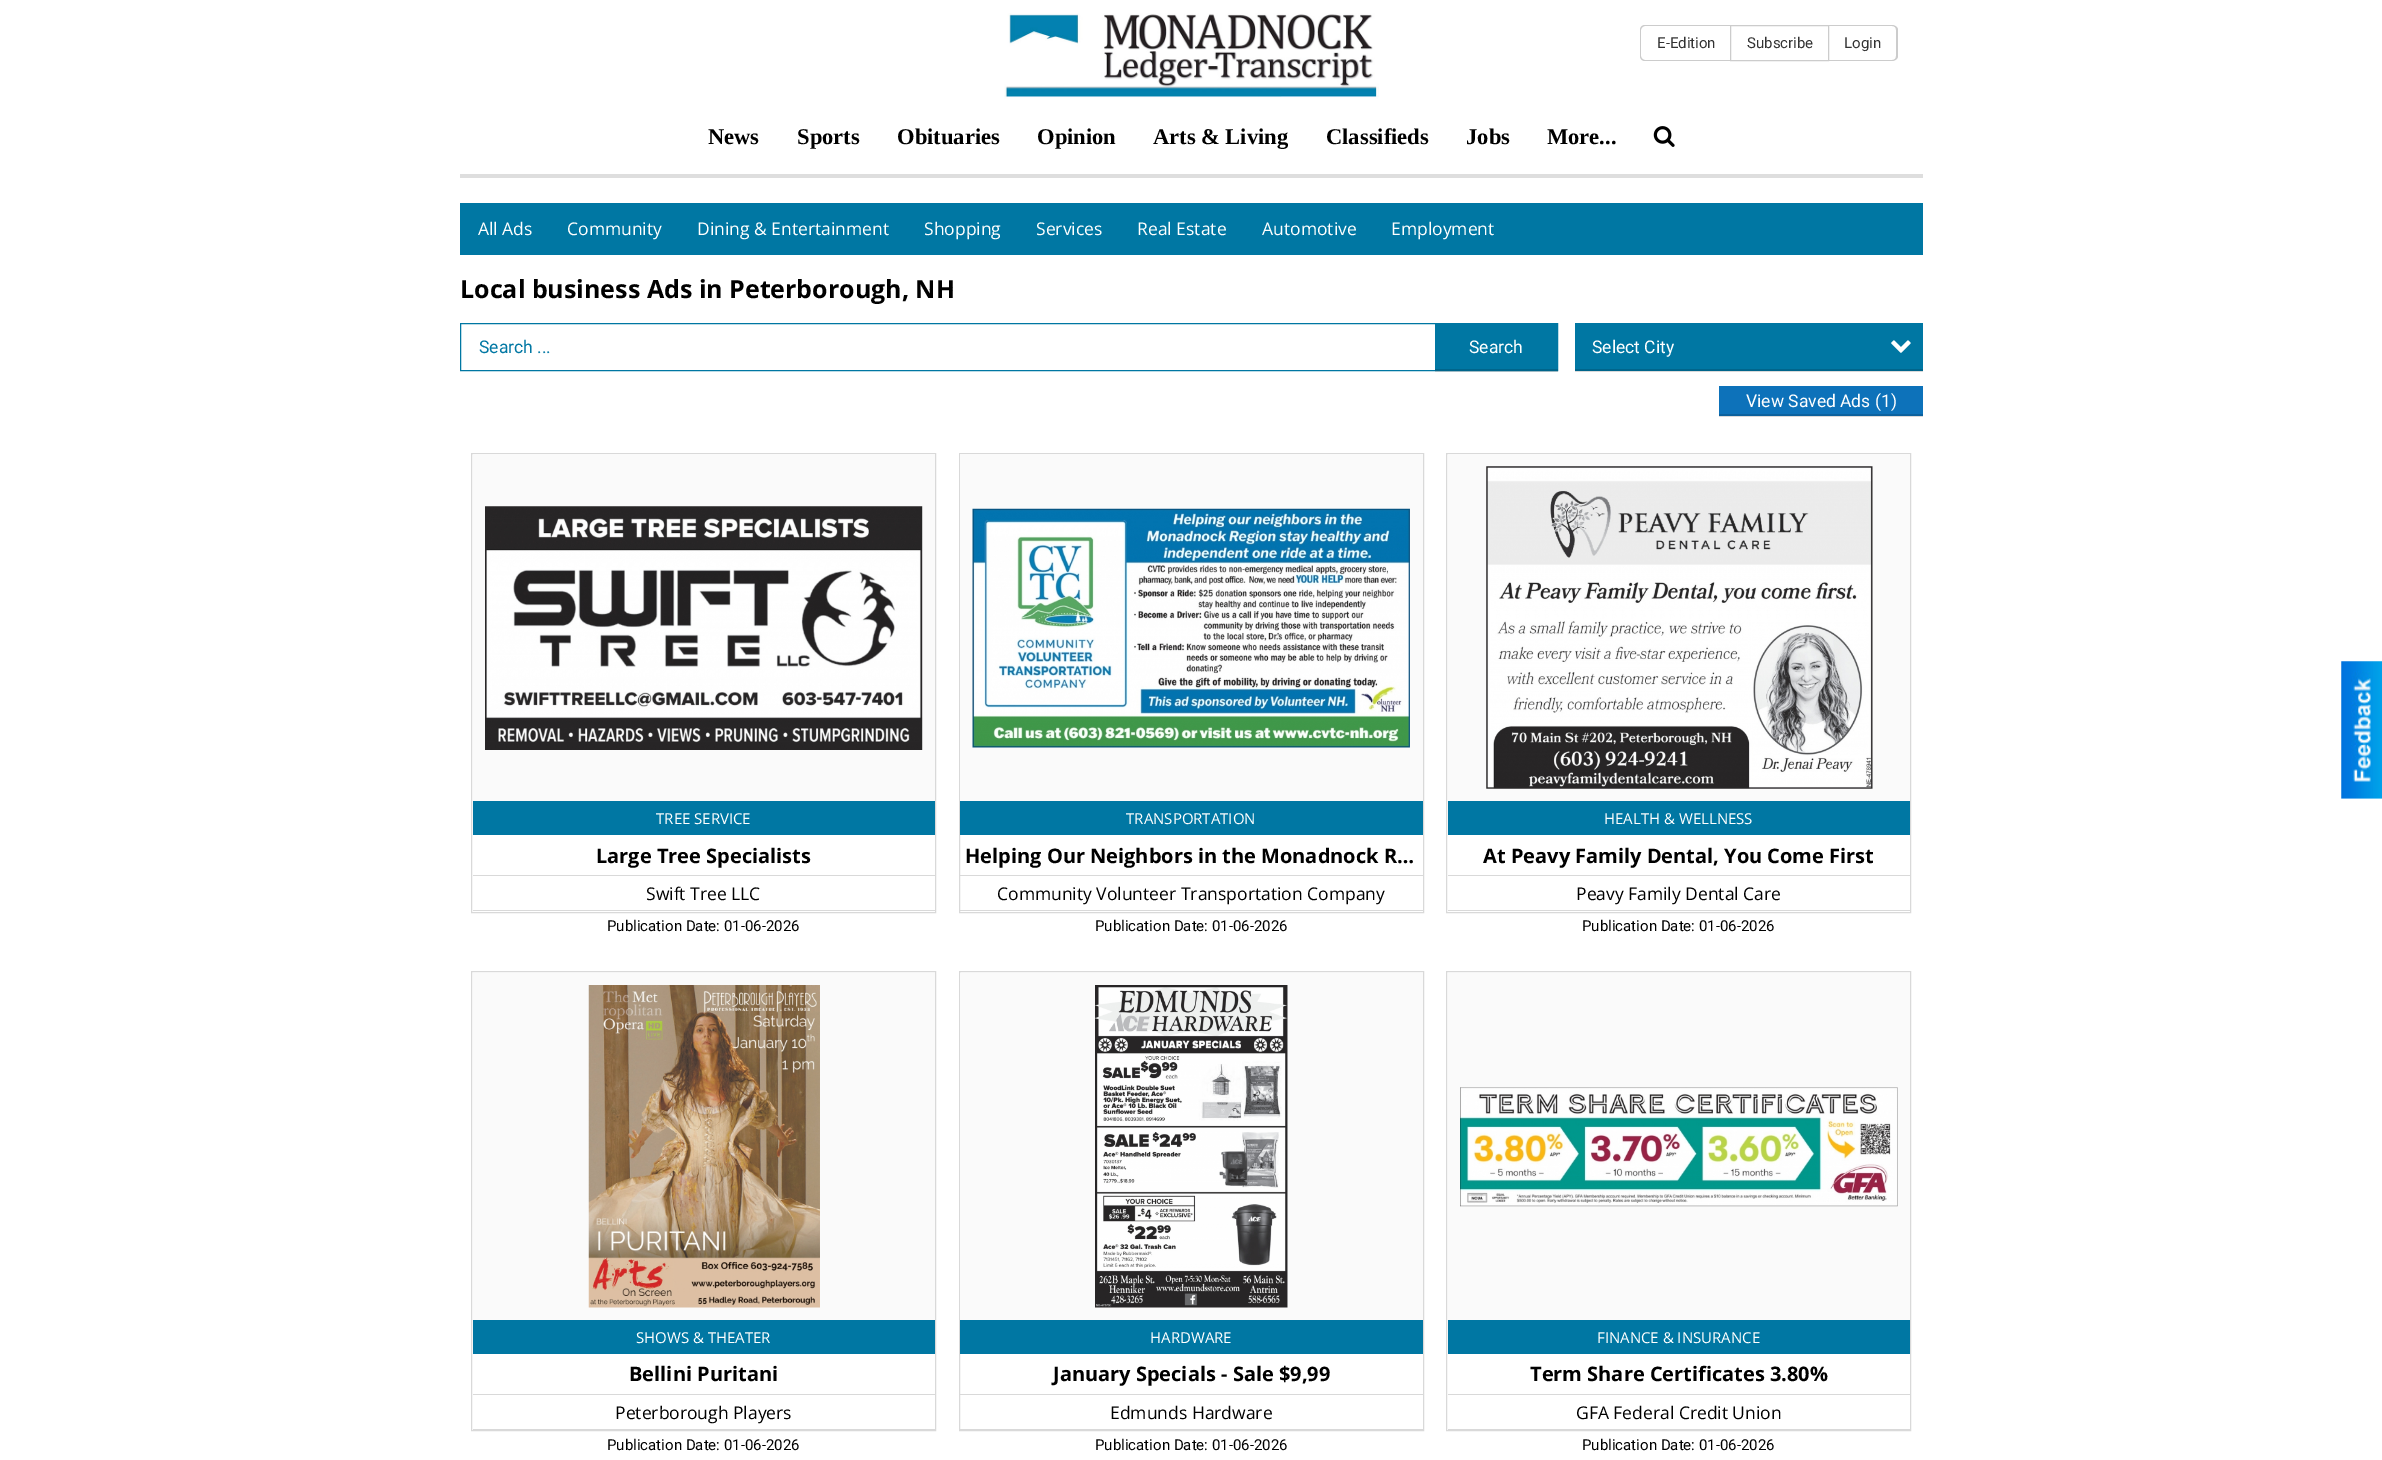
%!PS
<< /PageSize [2382 1460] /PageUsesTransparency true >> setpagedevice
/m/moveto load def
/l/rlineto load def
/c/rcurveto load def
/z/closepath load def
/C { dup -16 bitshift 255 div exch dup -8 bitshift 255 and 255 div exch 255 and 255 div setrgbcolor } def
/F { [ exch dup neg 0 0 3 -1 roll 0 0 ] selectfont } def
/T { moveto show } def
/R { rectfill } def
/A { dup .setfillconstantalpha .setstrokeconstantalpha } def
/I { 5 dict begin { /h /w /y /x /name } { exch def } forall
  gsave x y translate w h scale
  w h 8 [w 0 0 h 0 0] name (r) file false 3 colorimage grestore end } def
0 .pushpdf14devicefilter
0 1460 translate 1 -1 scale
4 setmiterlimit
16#FFFFFF C
0 0 2382 1460 R
16#D9D9D9 C
1719 416 204 1 R
1575 371 348 1 R
16#DEDEDE C
460 174 1463 4 R
(1.rgb) 1004 13 375 86 I
16#CCCCCC C
1645 25 m 85 0 l 0 36 l -85 0 l -3 0 -5 -2 -5 -5 c 0 -26 l 0 -3 2 -5 5 -5 c z 1645 26 m 85 0 l 0 34 l -85 0 l -2 0 -4 -2 -4 -4 c 0 -26 l 0 -2 2 -4 4 -4 c z eofill
/Roboto-Regular 15 F
16#333333 C
(E-Edition) 1657 48 T
16#CCCCCC C
1730.5 25.5 98 35 rectstroke
16#333333 C
(Subscribe) 1747 48 T
16#CCCCCC C
1829 25 m 63 0 l 3 0 6 2 6 5 c 0 26 l 0 3 -3 5 -6 5 c -63 0 l z 1829 26 m 63 0 l 3 0 4 2 4 4 c 0 26 l 0 2 -1 4 -4 4 c -63 0 l z eofill
16#333333 C
(Login) 1844 48 T
/LiberationSerif-Bold 22.5 F
16#000000 C
(News) 708 144 T
(Sports) 797 144 T
(Obituaries) 897 144 T
(Opinion) 1037 144 T
(Arts & Living) 1153 144 T
(Classifieds) 1326 144 T
(Jobs) 1466 144 T
(More...) 1547 144 T
(2.rgb) 1653 126 22 21 I
16#0077A3 C
460 203 1463 52 R
/OpenSans-Regular 17.5 F
16#FFFFFF C
(All Ads) 478 235 T
(Community) 567 235 T
(Dining & Entertainment) 697 235 T
(Shopping) 924 235 T
(Services) 1036 235 T
(Real Estate) 1137 235 T
(Automotive) 1262 235 T
(Employment) 1391 235 T
/OpenSans-Bold 25 F
16#000000 C
(Local business Ads in Peterborough, NH) 460 298 T
16#0077A3 C
460.5 323.5 1097 47 rectstroke
/Roboto-Regular 17.5 F
(Search ...) 479 353 T
1435 324 122 46 R
0.15 A
16#000000 C
1435 369 123 3 R
1 A
16#FFFFFF C
(Search) 1469 353 T
16#0077A3 C
1575 323 348 46 R
16#00658B C
1575 369 348 2 R
16#FFFFFF C
(Select City) 1592 353 T
(3.rgb) 1891 340 20 13 I
16#0D72BA C
1719 386 204 28 R
16#0B619E C
1719 414 204 2 R
16#FFFFFF C
(View Saved Ads \(1\)) 1746 407 T
16#D9D9D9 C
471.5 453.5 464 459 rectstroke
473 910 462 1 R
16#FAFAFA C
473 454 462 347 R
(4.rgb) 485 506 438 244 I
16#0077A3 C
473 801 462 34 R
/OpenSans-Regular 15 F
16#FFFFFF C
(TREE SERVICE) 656 824 T
16#D9D9D9 C
473 875 462 1 R
/OpenSans-Bold 20 F
16#000000 C
(Large Tree Specialists) 596 863 T
/OpenSans-Regular 17.5 F
(Swift Tree LLC) 646 900 T
/Roboto-Regular 15 F
(Publication Date: 01-06-2026) 607 931 T
16#D9D9D9 C
959.5 453.5 464 459 rectstroke
960 910 463 1 R
16#FAFAFA C
960 454 463 347 R
(5.rgb) 972 508 438 240 I
16#0077A3 C
960 801 463 34 R
/OpenSans-Regular 15 F
16#FFFFFF C
(TRANSPORTATION) 1126 824 T
16#D9D9D9 C
960 875 463 1 R
/OpenSans-Bold 20 F
16#000000 C
(Helping Our Neighbors in the Monadnock R…) 965 863 T
/OpenSans-Regular 17.5 F
(Community Volunteer Transportation Company) 997 900 T
/Roboto-Regular 15 F
(Publication Date: 01-06-2026) 1095 931 T
16#D9D9D9 C
1446.5 453.5 464 459 rectstroke
1448 910 462 1 R
16#FAFAFA C
1448 454 462 347 R
(6.rgb) 1486 466 387 323 I
16#0077A3 C
1448 801 462 34 R
/OpenSans-Regular 15 F
16#FFFFFF C
(HEALTH & WELLNESS) 1604 824 T
16#D9D9D9 C
1448 875 462 1 R
/OpenSans-Bold 20 F
16#000000 C
(At Peavy Family Dental, You Come First) 1483 863 T
/OpenSans-Regular 17.5 F
(Peavy Family Dental Care) 1576 900 T
/Roboto-Regular 15 F
(Publication Date: 01-06-2026) 1582 931 T
16#D9D9D9 C
471.5 971.5 464 459 rectstroke
473 1429 462 1 R
16#FAFAFA C
473 973 462 347 R
(7.rgb) 588 985 232 323 I
16#0077A3 C
473 1320 462 34 R
/OpenSans-Regular 15 F
16#FFFFFF C
(SHOWS & THEATER) 636 1343 T
16#D9D9D9 C
473 1394 462 1 R
/OpenSans-Bold 20 F
16#000000 C
(Bellini Puritani) 629 1381 T
/OpenSans-Regular 17.5 F
(Peterborough Players) 615 1419 T
/Roboto-Regular 15 F
(Publication Date: 01-06-2026) 607 1450 T
16#D9D9D9 C
959.5 971.5 464 459 rectstroke
960 1429 463 1 R
16#FAFAFA C
960 973 463 347 R
(8.rgb) 1095 985 193 323 I
16#0077A3 C
960 1320 463 34 R
/OpenSans-Regular 15 F
16#FFFFFF C
(HARDWARE) 1150 1343 T
16#D9D9D9 C
960 1394 463 1 R
/OpenSans-Bold 20 F
16#000000 C
(January Specials - Sale $9,99) 1053 1381 T
/OpenSans-Regular 17.5 F
(Edmunds Hardware) 1110 1419 T
/Roboto-Regular 15 F
(Publication Date: 01-06-2026) 1095 1450 T
16#D9D9D9 C
1446.5 971.5 464 459 rectstroke
1448 1429 462 1 R
16#FAFAFA C
1448 973 462 347 R
(9.rgb) 1460 1087 438 120 I
16#0077A3 C
1448 1320 462 34 R
/OpenSans-Regular 15 F
16#FFFFFF C
(FINANCE & INSURANCE) 1597 1343 T
16#D9D9D9 C
1448 1394 462 1 R
/OpenSans-Bold 20 F
16#000000 C
(Term Share Certificates 3.80%) 1530 1381 T
/OpenSans-Regular 17.5 F
(GFA Federal Credit Union) 1576 1419 T
/Roboto-Regular 15 F
(Publication Date: 01-06-2026) 1582 1450 T
(10.rgb) 2341 661 41 138 I
.poppdf14devicefilter showpage
